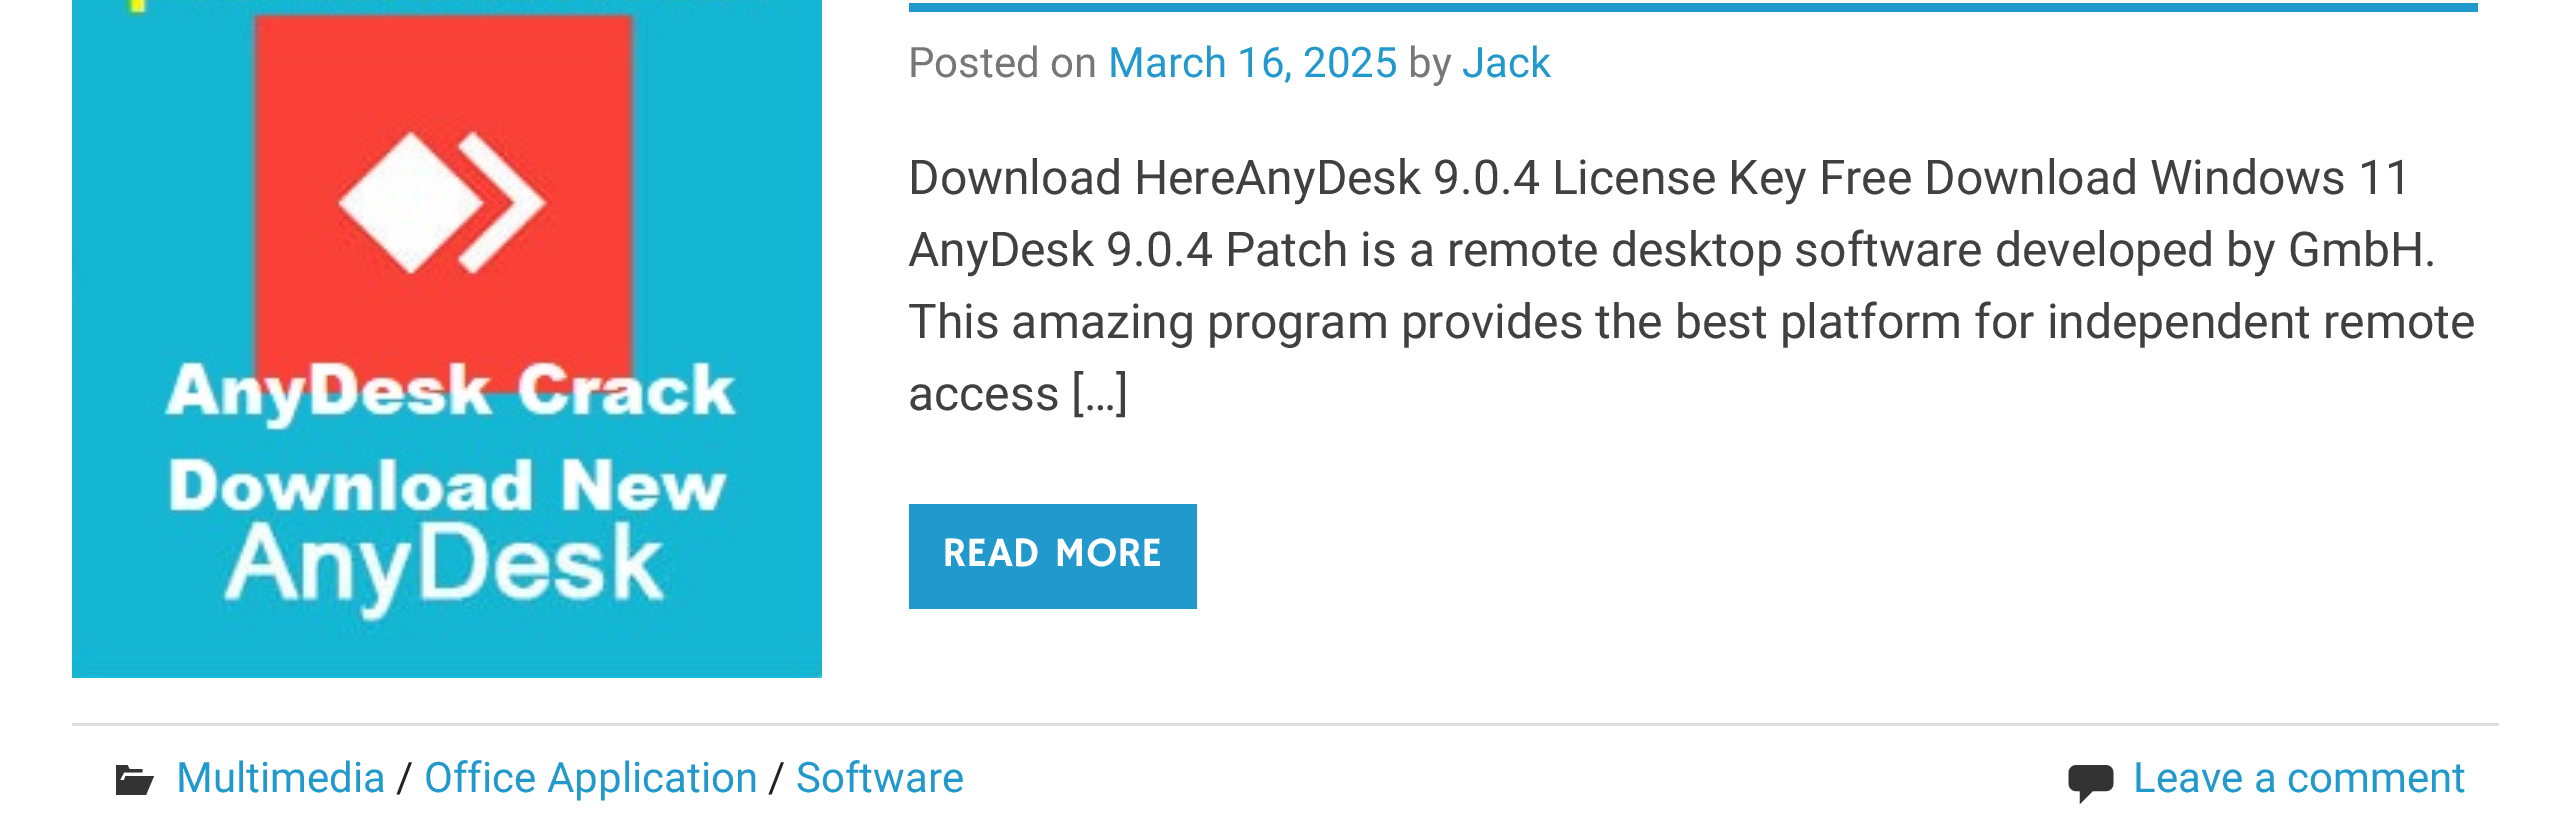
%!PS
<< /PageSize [2569 827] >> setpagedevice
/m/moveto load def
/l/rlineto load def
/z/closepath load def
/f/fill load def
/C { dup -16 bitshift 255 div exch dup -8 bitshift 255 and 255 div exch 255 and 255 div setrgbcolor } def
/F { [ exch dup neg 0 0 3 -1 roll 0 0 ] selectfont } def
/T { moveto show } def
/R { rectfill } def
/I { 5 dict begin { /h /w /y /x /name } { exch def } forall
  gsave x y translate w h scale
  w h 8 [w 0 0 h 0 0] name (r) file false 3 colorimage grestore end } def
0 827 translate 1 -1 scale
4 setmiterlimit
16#FFFFFF C
0 0 2569 827 R
(1.rgb) 72 0 750 678 I
16#2299CC C
909 3 1569 9 R
/Roboto-Regular 42 F
16#777777 C
(Posted on) 908 77 T
16#2299CC C
(March 16, 2025) 1108 77 T
16#777777 C
(by) 1408 77 T
16#2299CC C
(Jack) 1462 77 T
/Roboto-Regular 48 F
16#404040 C
(Download HereAnyDesk 9.0.4 License Key Free Download Windows 11) 908 194 T
(AnyDesk 9.0.4 Patch is a remote desktop software developed by GmbH.) 908 266 T
(This amazing program provides the best platform for independent remote) 908 338 T
(access […]) 908 410 T
16#2299CC C
909 504 288 105 R
/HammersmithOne-Regular 42 F
16#FFFFFF C
(READ MORE) 942 566 T
16#DDDDDD C
72 723 2427 3 R
16#333333 C
125.5 776 m 28.5 0 l -8 19 l -30 0 l 0 -30 l 11.5 0 l 2 4 l 13 0 l 0 3.5 l -18.5 0 l -4 7.5 l 4 0 l z f
/Roboto-Regular 42 F
16#2299CC C
(Multimedia) 176 792 T
16#222222 C
(/) 396 792 T
16#2299CC C
(Office Application) 424 792 T
16#222222 C
(/) 768 792 T
16#2299CC C
(Software) 796 792 T
(2.rgb) 2068 765 46 40 I
(Leave a comment) 2133 792 T
showpage
